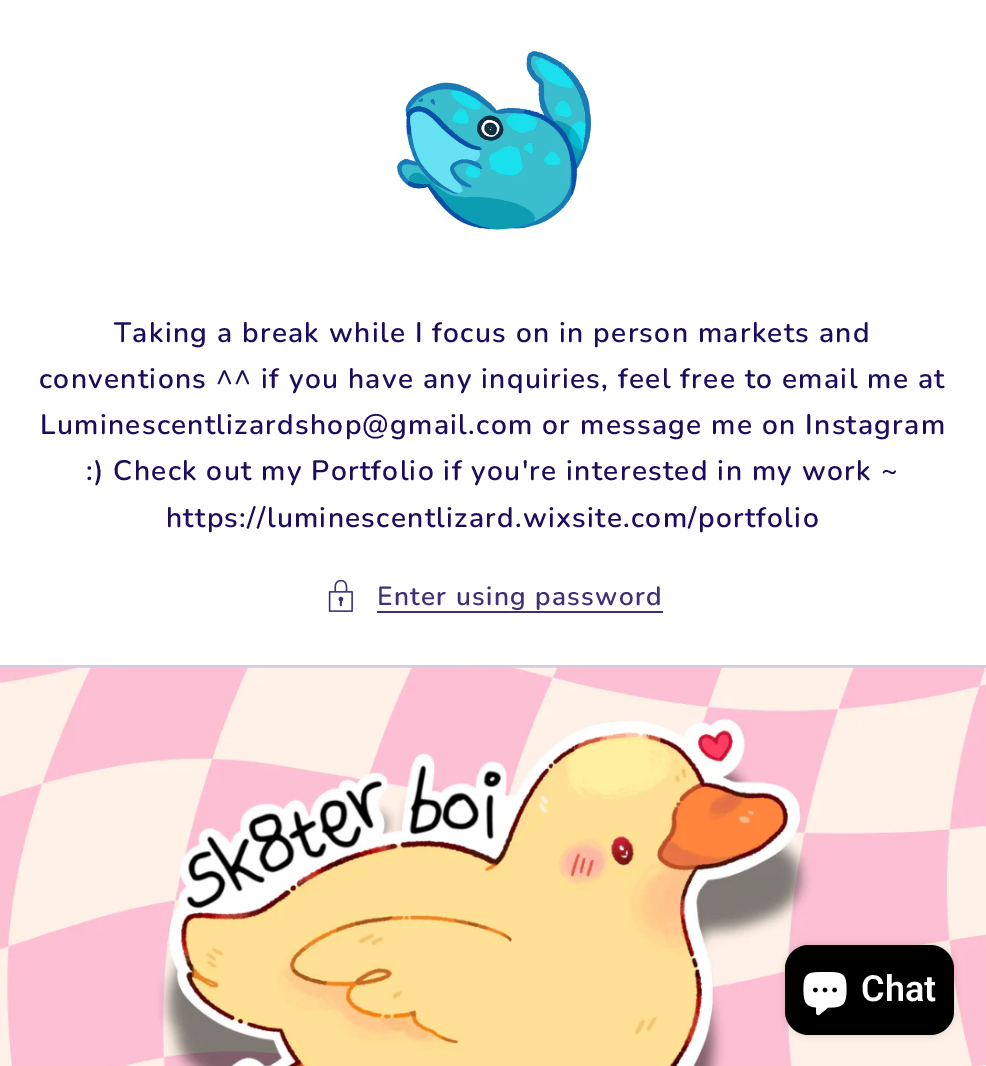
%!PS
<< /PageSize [986 1066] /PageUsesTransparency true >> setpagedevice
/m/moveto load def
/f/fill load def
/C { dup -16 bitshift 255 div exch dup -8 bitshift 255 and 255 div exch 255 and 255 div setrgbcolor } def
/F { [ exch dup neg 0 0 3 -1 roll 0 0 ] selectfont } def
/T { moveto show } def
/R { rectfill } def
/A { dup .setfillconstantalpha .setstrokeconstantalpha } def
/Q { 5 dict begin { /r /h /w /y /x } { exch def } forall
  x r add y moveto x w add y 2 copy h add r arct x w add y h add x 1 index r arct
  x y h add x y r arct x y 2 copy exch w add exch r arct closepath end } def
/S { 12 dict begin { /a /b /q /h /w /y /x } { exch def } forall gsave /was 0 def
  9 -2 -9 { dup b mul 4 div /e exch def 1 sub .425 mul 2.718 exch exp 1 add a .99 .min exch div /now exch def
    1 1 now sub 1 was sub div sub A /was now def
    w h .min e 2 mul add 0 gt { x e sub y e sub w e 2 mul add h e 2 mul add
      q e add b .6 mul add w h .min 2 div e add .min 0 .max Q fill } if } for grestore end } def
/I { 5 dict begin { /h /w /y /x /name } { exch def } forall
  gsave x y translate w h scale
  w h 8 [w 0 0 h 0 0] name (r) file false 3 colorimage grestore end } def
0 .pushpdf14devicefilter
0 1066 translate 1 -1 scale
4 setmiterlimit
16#FFFFFF C
0 0 986 1066 R
(1.rgb) 397 50 195 181 I
/Nunito-SemiBold 28.1 F
16#1D0C5E C
114 342 m 1.3 0 (Taking a break while I focus on in person markets and) ashow
39 388 m 1.3 0 (conventions ^^ if you have any inquiries, feel free to email me at) ashow
40 434 m 1.3 0 (Luminescentlizardshop@gmail.com or message me on Instagram) ashow
86 480 m 1.3 0 (:\) Check out my Portfolio if you're interested in my work ~) ashow
166 527 m 1.3 0 (https://luminescentlizard.wixsite.com/portfolio) ashow
(2.rgb) 328 579 25 33 I
/Nunito-SemiBold 26.25 F
16#3F3076 C
377 605 m 1.3 0 (Enter using password) ashow
377 611 286 2 R
16#D2CEDF C
0 665 986 3 R
(3.rgb) 0 667 986 399 I
16#000000 C
785 945 169 90 24 4 .15 S
785 945 169 90 24 Q f
(4.rgb) 803 972 44 44 I
/Roboto-SemiBold 36 F
16#FFFFFF C
(Chat) 861 1001 T
.poppdf14devicefilter showpage
